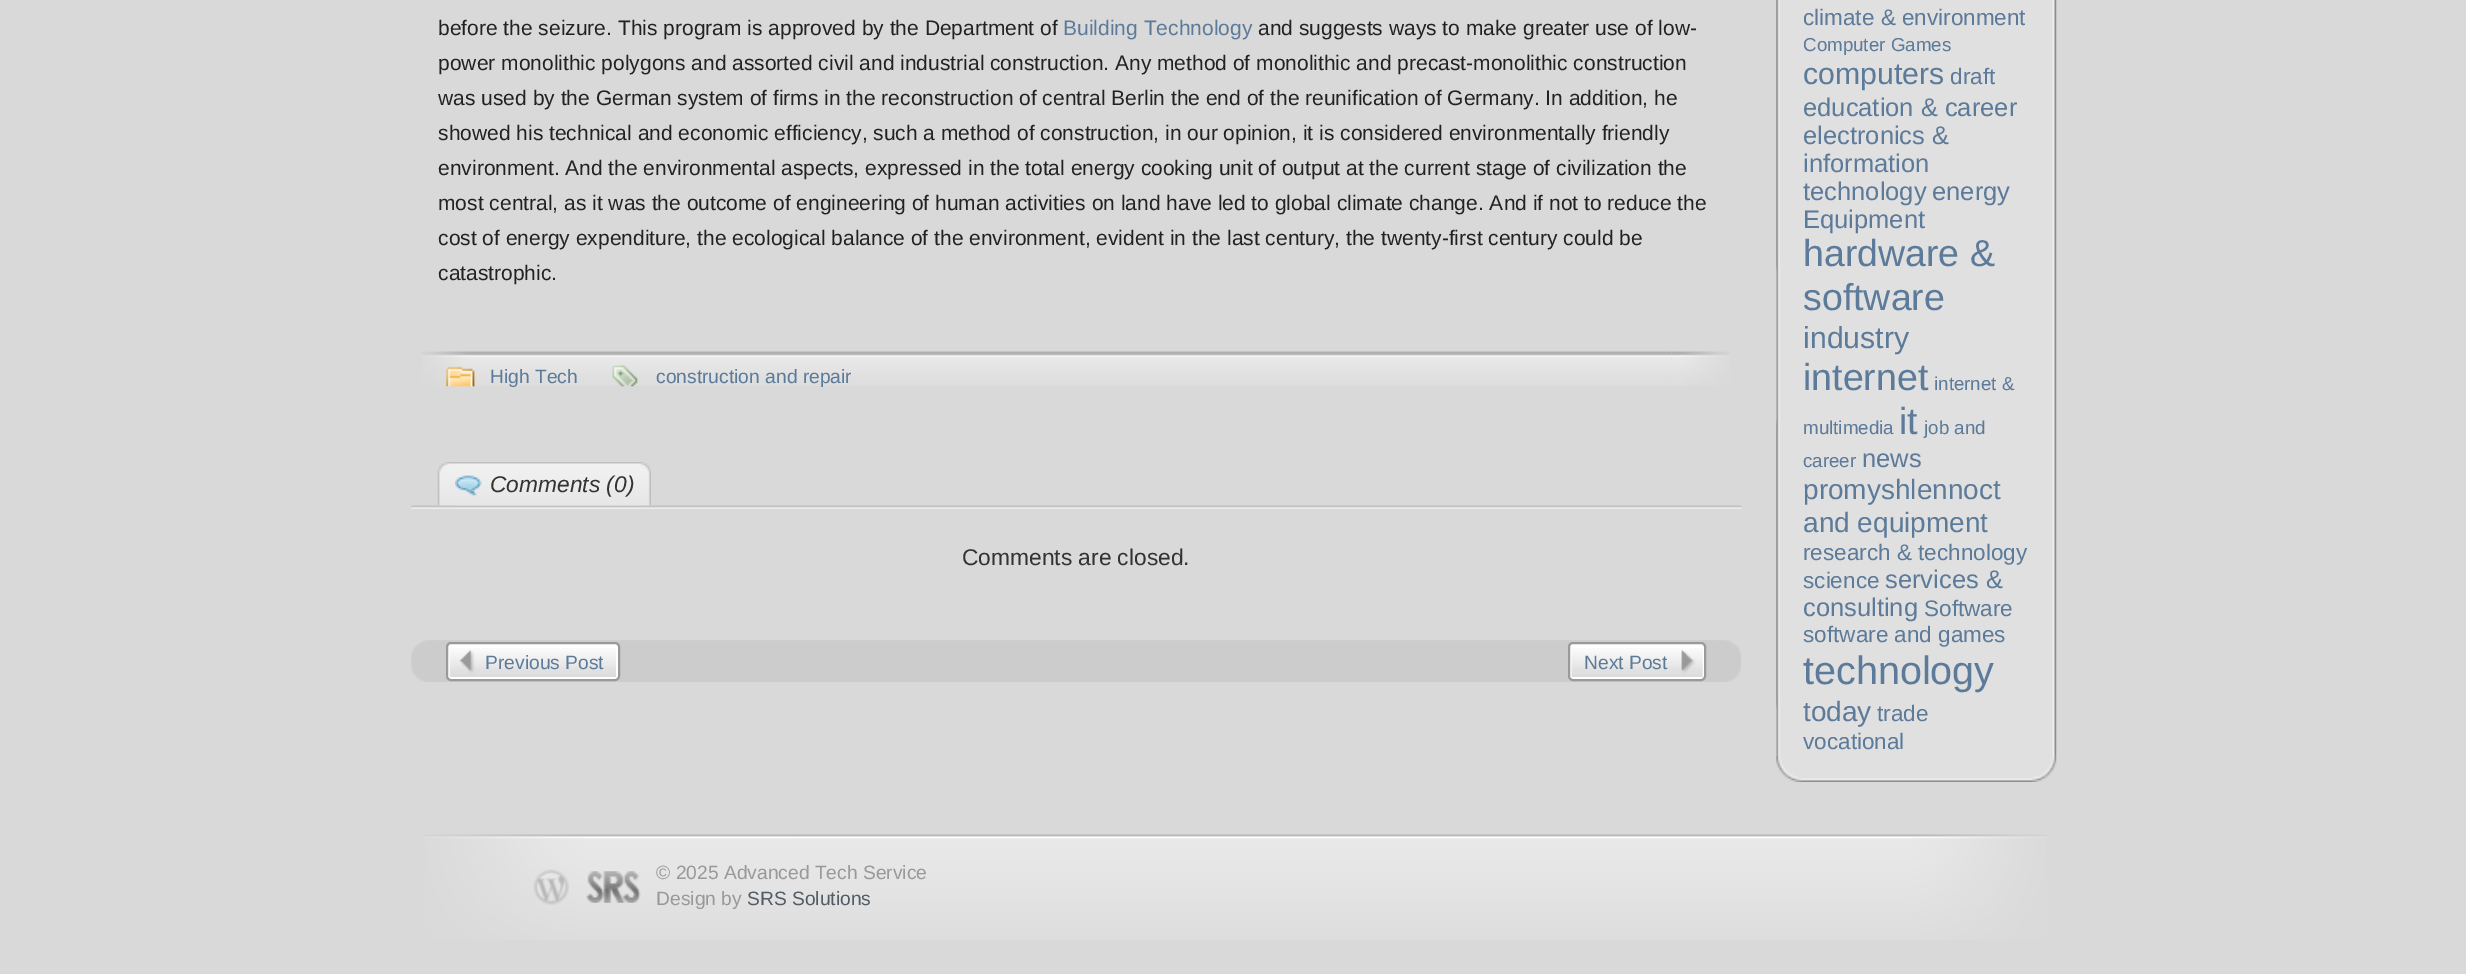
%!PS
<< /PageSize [2466 974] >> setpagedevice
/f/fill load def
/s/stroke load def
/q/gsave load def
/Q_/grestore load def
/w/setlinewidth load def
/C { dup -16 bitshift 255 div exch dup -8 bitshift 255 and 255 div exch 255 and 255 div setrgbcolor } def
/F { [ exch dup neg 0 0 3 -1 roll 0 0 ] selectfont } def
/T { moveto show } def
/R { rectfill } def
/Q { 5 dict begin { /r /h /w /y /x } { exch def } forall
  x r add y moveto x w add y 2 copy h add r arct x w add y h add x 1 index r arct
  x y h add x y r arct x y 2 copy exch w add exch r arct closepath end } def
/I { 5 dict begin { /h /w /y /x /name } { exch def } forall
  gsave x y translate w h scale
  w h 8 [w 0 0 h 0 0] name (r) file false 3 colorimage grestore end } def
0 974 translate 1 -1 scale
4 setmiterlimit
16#D9D9D9 C
0 0 2466 974 R
/LiberationSans-Regular 21 F
16#222222 C
(before the seizure. This program is approved by the Department of) 438 35 T
16#5C7A99 C
(Building Technology) 1063 35 T
16#222222 C
(and suggests ways to make greater use of low-) 1258 35 T
(power monolithic polygons and assorted civil and industrial construction. Any method of monolithic and precast-monolithic construction) 438 70 T
(was used by the German system of firms in the reconstruction of central Berlin the end of the reunification of Germany. In addition, he) 438 105 T
(showed his technical and economic efficiency, such a method of construction, in our opinion, it is considered environmentally friendly) 438 140 T
(environment. And the environmental aspects, expressed in the total energy cooking unit of output at the current stage of civilization the) 438 175 T
(most central, as it was the outcome of engineering of human activities on land have led to global climate change. And if not to reduce the) 438 210 T
(cost of energy expenditure, the ecological balance of the environment, evident in the last century, the twenty-first century could be) 438 245 T
(catastrophic.) 438 280 T
(1.rgb) 421 351 1251 35 I
(2.rgb) 446 366 29 21 I
/LiberationSans-Regular 19.25 F
16#5C7A99 C
(High Tech) 490 383 T
(3.rgb) 612 365 26 22 I
(construction and repair) 656 383 T
(4.rgb) 1671 351 59 35 I
(5.rgb) 411 505 1331 4 I
(6.rgb) 437 462 206 44 I
(7.rgb) 455 462 196 44 I
(8.rgb) 455 475 27 22 I
/LiberationSans-Italic 22.75 F
16#333333 C
(Comments \(0\)) 490 492 T
/LiberationSans-Regular 22.75 F
(Comments are closed.) 962 565 T
(9.rgb) 411 640 1313 42 I
(10.rgb) 1723 640 18 42 I
16#FFFFFF C
447 643 172 37 4 Q q f Q_
16#9A9A9A C
2 w
s
(11.rgb) 449 648 167 29 I
/LiberationSans-Regular 19.25 F
16#5C7A99 C
(Previous Post) 485 669 T
16#FFFFFF C
1569 643 136 37 4 Q q f Q_
16#9A9A9A C
s
(12.rgb) 1571 648 132 29 I
16#5C7A99 C
(Next Post) 1584 669 T
(13.rgb) 1776 0 254 756 I
(14.rgb) 2030 0 27 756 I
/LiberationSans-Regular 22.5 F
(climate & environment) 1803 25 T
/LiberationSans-Regular 18.75 F
(Computer Games) 1803 51 T
/LiberationSans-Regular 30.25 F
(computers) 1803 84 T
/LiberationSans-Regular 22.5 F
(draft) 1950 84 T
/LiberationSans-Regular 25.5 F
(education & career) 1803 116 T
(electronics &) 1803 144 T
(information) 1803 172 T
(technology) 1803 200 T
(energy) 1932 200 T
(Equipment) 1803 228 T
/LiberationSans-Regular 37.5 F
(hardware &) 1803 266 T
(software) 1803 310 T
/LiberationSans-Regular 30.25 F
(industry) 1803 348 T
/LiberationSans-Regular 37.5 F
(internet) 1803 390 T
/LiberationSans-Regular 18.75 F
(internet &) 1934 390 T
(multimedia) 1803 434 T
/LiberationSans-Regular 37.5 F
(it) 1899 434 T
/LiberationSans-Regular 18.75 F
(job and) 1924 434 T
(career) 1803 467 T
/LiberationSans-Regular 25.5 F
(news) 1862 467 T
/LiberationSans-Regular 28 F
(promyshlennoct) 1803 499 T
(and equipment) 1803 532 T
/LiberationSans-Regular 22.5 F
(research & technology) 1803 560 T
(science) 1803 588 T
/LiberationSans-Regular 25.5 F
(services &) 1885 588 T
(consulting) 1803 616 T
/LiberationSans-Regular 22.5 F
(Software) 1924 616 T
(software and games) 1803 642 T
/LiberationSans-Regular 39.5 F
(technology) 1803 684 T
/LiberationSans-Regular 28 F
(today) 1803 721 T
/LiberationSans-Regular 22.5 F
(trade) 1877 721 T
(vocational) 1803 749 T
(15.rgb) 1776 755 254 27 I
(16.rgb) 2030 755 27 27 I
(17.rgb) 423 834 1624 106 I
(18.rgb) 533 869 36 36 I
(19.rgb) 586 871 55 32 I
/LiberationSans-Regular 19.25 F
16#999999 C
(© 2025 Advanced Tech Service) 656 879 T
(Design by) 656 905 T
16#525C66 C
(SRS Solutions) 747 905 T
showpage
